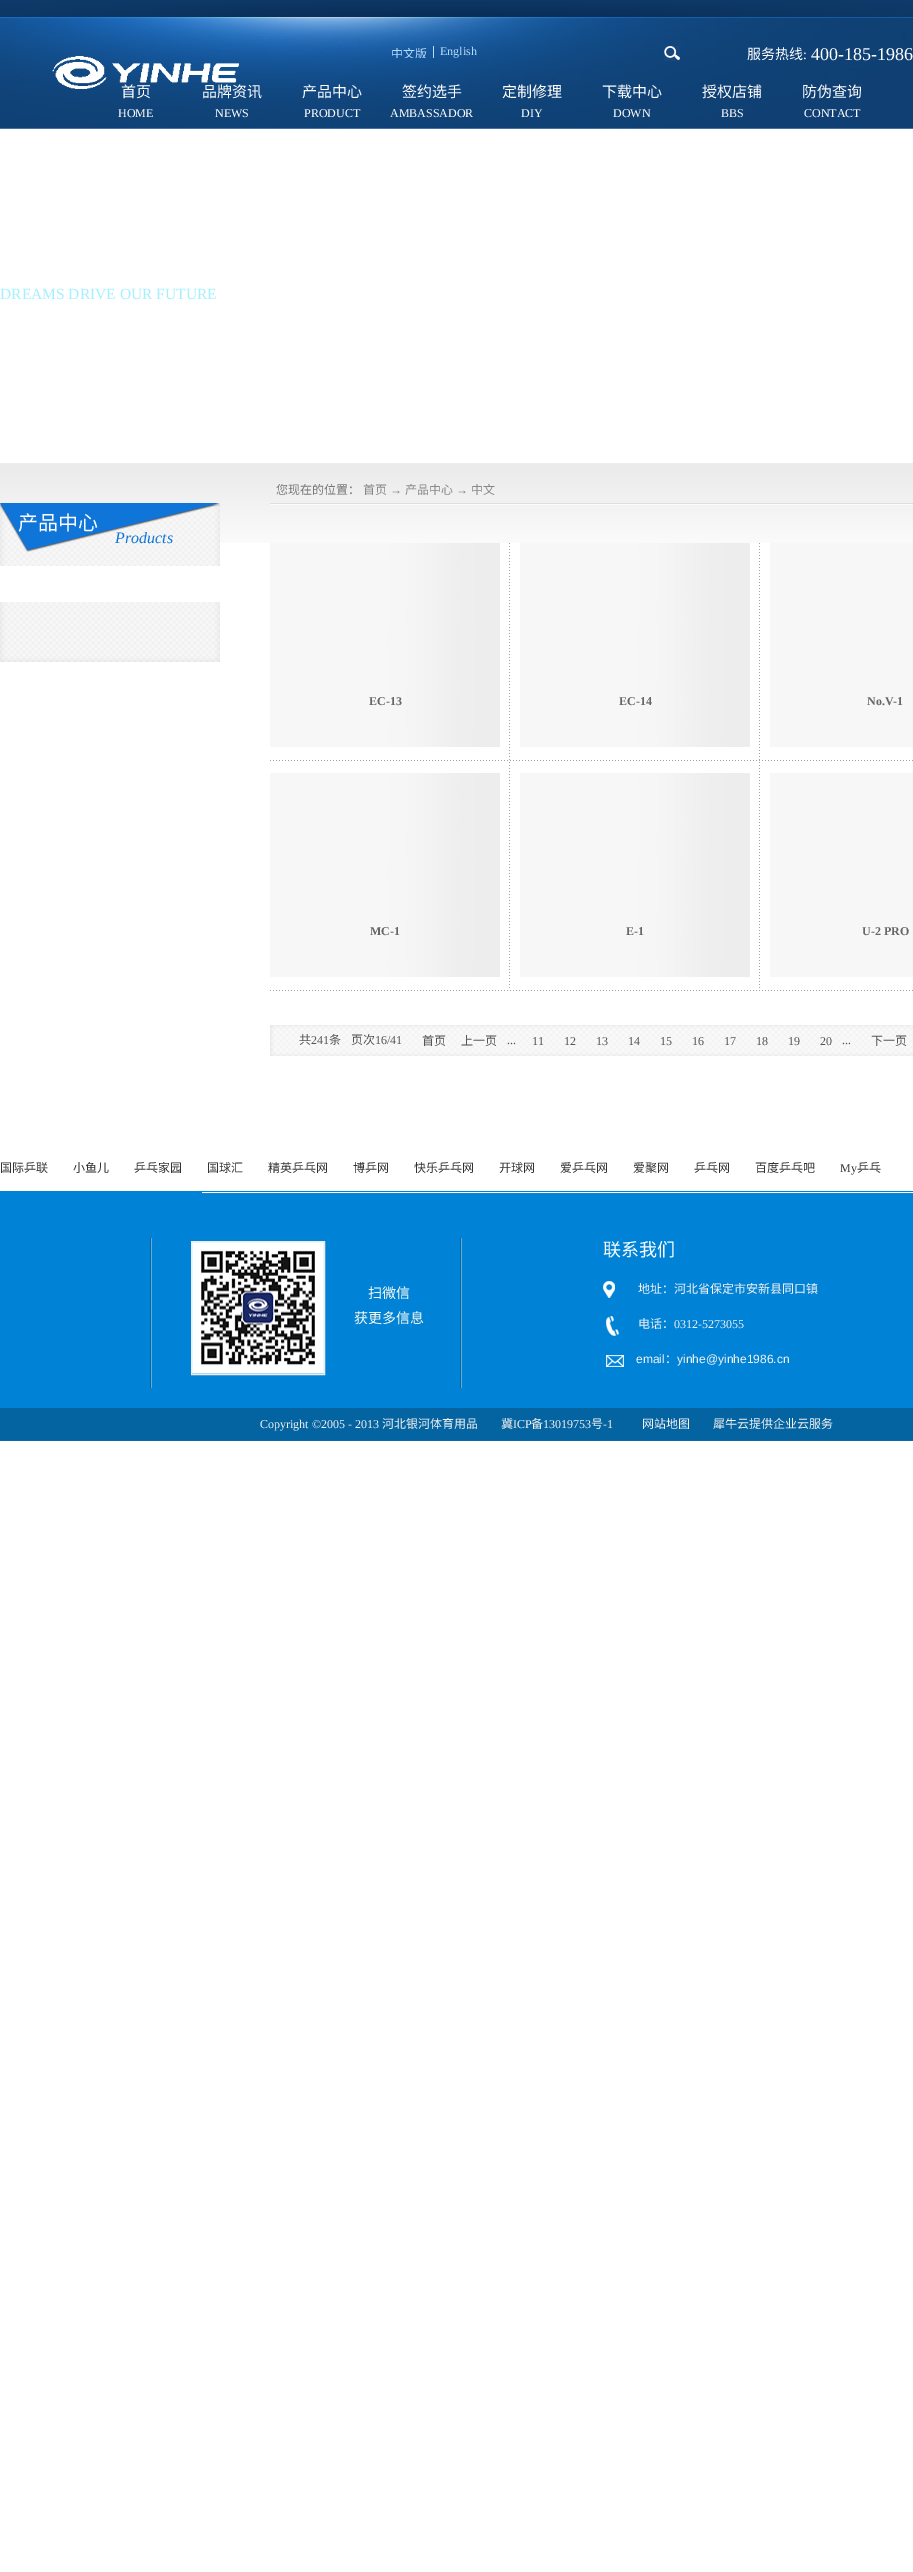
%!PS
<< /PageSize [913 2572] >> setpagedevice
/q/gsave load def
/Q_/grestore load def
/C { dup -16 bitshift 255 div exch dup -8 bitshift 255 and 255 div exch 255 and 255 div setrgbcolor } def
/F { [ exch dup neg 0 0 3 -1 roll 0 0 ] selectfont } def
/T { moveto show } def
/R { rectfill } def
/I { 5 dict begin { /h /w /y /x /name } { exch def } forall
  gsave x y translate w h scale
  w h 8 [w 0 0 h 0 0] name (r) file false 3 colorimage grestore end } def
0 2572 translate 1 -1 scale
4 setmiterlimit
16#FFFFFF C
0 0 913 2572 R
(1.rgb) 0 0 913 129 I
q
385 46 92 12 rectclip
/NotoSansCJKSC-Regular 12 F
16#B7DBFF C
(中文版) 391 58 T
Q_
16#B7DBFF C
433 46 1 12 R
/LiberationSerif-Regular 12 F
(English) 440 55 T
(2.rgb) 664 46 16 15 I
/NotoSansCJKSC-Regular 14 F
16#FFFFFF C
(服务热线) 747 59 T
/LiberationSerif-Regular 14 F
(:) 803 59 T
/LiberationSerif-Regular 18 F
(400-185-1986) 811 60 T
/NotoSansCJKSC-Regular 15 F
(首页) 121 97 T
/LiberationSerif-Regular 12 F
(HOME) 118 117 T
/NotoSansCJKSC-Regular 15 F
(品牌资讯) 202 97 T
/LiberationSerif-Regular 12 F
(NEWS) 215 117 T
/NotoSansCJKSC-Regular 15 F
(产品中心) 302 97 T
/LiberationSerif-Regular 12 F
(PRODUCT) 304 117 T
/NotoSansCJKSC-Regular 15 F
(签约选手) 402 97 T
/LiberationSerif-Regular 12 F
(AMBASSADOR) 390 117 T
/NotoSansCJKSC-Regular 15 F
(定制修理) 502 97 T
/LiberationSerif-Regular 12 F
(DIY) 521 117 T
/NotoSansCJKSC-Regular 15 F
(下载中心) 602 97 T
/LiberationSerif-Regular 12 F
(DOWN) 613 117 T
/NotoSansCJKSC-Regular 15 F
(授权店铺) 702 97 T
/LiberationSerif-Regular 12 F
(BBS) 721 117 T
/NotoSansCJKSC-Regular 15 F
(防伪查询) 802 97 T
/LiberationSerif-Regular 12 F
(CONTACT) 804 117 T
(3.rgb) 52 56 187 33 I
/LiberationSerif-Regular 15.5 F
16#A5F0FF C
(DREAMS DRIVE OUR FUTURE) 0 299 T
(4.rgb) 0 463 913 80 I
(5.rgb) 0 602 220 60 I
(6.rgb) 0 503 220 63 I
/NotoSansCJKSC-Regular 20 F
16#FFFFFF C
(产品中心) 18 530 T
/LiberationSerif-Italic 16 F
16#1075D9 C
(Products) 115 543 T
(7.rgb) 270 503 643 2 I
/NotoSansCJKSC-Regular 12 F
16#777777 C
(您现在的位置：) 276 494 T
16#888888 C
(首页) 363 494 T
/LiberationSerif-Regular 12 F
16#777777 C
(→) 390 494 T
/NotoSansCJKSC-Regular 12 F
16#888888 C
(产品中心) 405 494 T
/LiberationSerif-Regular 12 F
16#777777 C
(→) 456 494 T
/NotoSansCJKSC-Regular 12 F
16#888888 C
(中文) 471 494 T
(8.rgb) 270 543 643 448 I
(9.rgb) 270 543 230 204 I
/LiberationSerif-Bold 12 F
16#666666 C
(EC-13) 369 705 T
(9.rgb) 520 543 230 204 I
(EC-14) 619 705 T
16#F7F7F7 C
770 543 143 204 R
16#666666 C
(No.V-1) 867 705 T
(9.rgb) 270 773 230 204 I
(MC-1) 370 935 T
(9.rgb) 520 773 230 204 I
(E-1) 626 935 T
16#F7F7F7 C
770 773 143 204 R
16#666666 C
(U-2 PRO) 862 935 T
(10.rgb) 270 1025 643 31 I
/NotoSansCJKSC-Regular 12 F
16#555555 C
(共) 299 1044 T
/LiberationSerif-Regular 12 F
(241) 311 1044 T
/NotoSansCJKSC-Regular 12 F
(条) 329 1044 T
(页次) 351 1044 T
/LiberationSerif-Regular 12 F
(16/41) 375 1044 T
/NotoSansCJKSC-Regular 12 F
(首页) 422 1045 T
(上一页) 461 1045 T
/LiberationSerif-Regular 12 F
(...) 507 1044 T
(11) 532 1045 T
(12) 564 1045 T
(13) 596 1045 T
(14) 628 1045 T
(15) 660 1045 T
(16) 692 1045 T
(17) 724 1045 T
(18) 756 1045 T
(19) 788 1045 T
(20) 820 1045 T
(...) 842 1044 T
/NotoSansCJKSC-Regular 12 F
(下一页) 871 1045 T
(11.rgb) 0 1191 913 250 I
16#0083D6 C
0 1192 202 2 R
16#333333 C
(国际乒联) 0 1172 T
(小鱼儿) 73 1172 T
(乒乓家园) 134 1172 T
(国球汇) 207 1172 T
(精英乒乓网) 268 1172 T
(博乒网) 353 1172 T
(快乐乒乓网) 414 1172 T
(开球网) 499 1172 T
(爱乒乓网) 560 1172 T
(爱聚网) 633 1172 T
(乒乓网) 694 1172 T
(百度乒乓吧) 755 1172 T
/LiberationSerif-Regular 12 F
(My) 840 1172 T
/NotoSansCJKSC-Regular 12 F
(乒乓) 857 1172 T
/NotoSansCJKSC-Regular 18 F
16#FFFFFF C
(联系我们) 603 1256 T
(12.rgb) 150 1238 312 150 I
16#EDEDED C
191.5 1241.5 133 133 rectstroke
(13.rgb) 192 1242 132 132 I
/NotoSansCJKSC-Regular 14 F
16#FAFAF0 C
(扫微信) 368 1298 T
(获更多信息) 354 1323 T
(14.rgb) 603 1281 21 86 I
/NotoSansCJKSC-Regular 12 F
16#F4F1F1 C
(地址：河北省保定市安新县同口镇) 638 1293 T
(电话：) 638 1328 T
/LiberationSerif-Regular 12 F
(0312-5273055) 674 1328 T
/LiberationSans-Regular 12 F
(email) 636 1363 T
/NotoSansCJKSC-Regular 12 F
(：) 665 1363 T
/LiberationSans-Regular 12 F
(yinhe@yinhe1986.cn) 677 1363 T
/LiberationSerif-Regular 12 F
(Copyright ©2005 - 2013) 260 1428 T
/NotoSansCJKSC-Regular 12 F
(河北银河体育用品) 382 1428 T
(冀) 501 1428 T
/LiberationSerif-Regular 12 F
(ICP) 513 1428 T
/NotoSansCJKSC-Regular 12 F
(备) 531 1428 T
/LiberationSerif-Regular 12 F
(13019753) 543 1428 T
/NotoSansCJKSC-Regular 12 F
(号) 591 1428 T
/LiberationSerif-Regular 12 F
(-1) 603 1428 T
/NotoSansCJKSC-Regular 12 F
(网站地图) 642 1428 T
(犀牛云提供企业云服务) 713 1428 T
showpage
